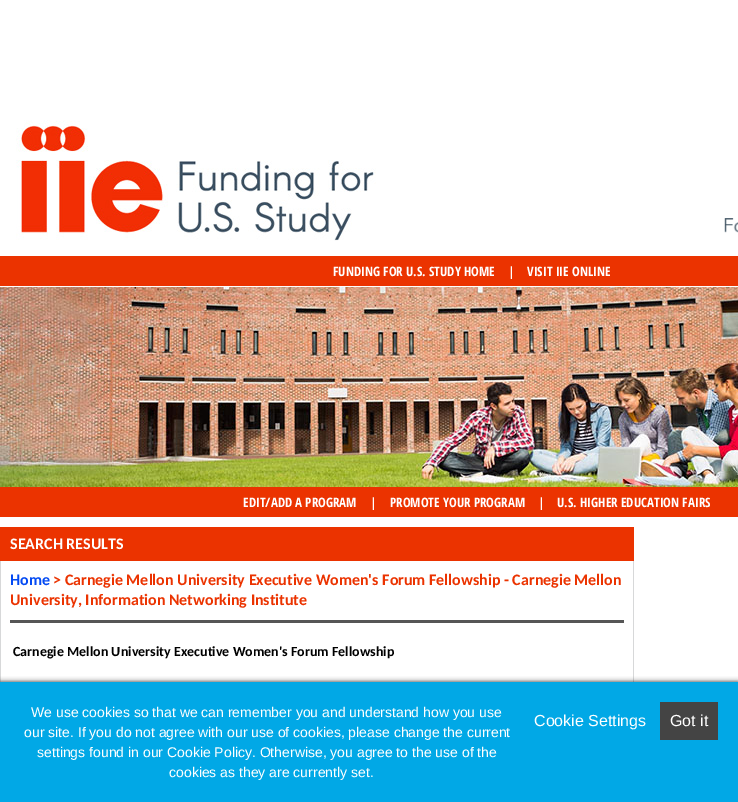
%!PS
<< /PageSize [738 802] /PageUsesTransparency true >> setpagedevice
/C { dup -16 bitshift 255 div exch dup -8 bitshift 255 and 255 div exch 255 and 255 div setrgbcolor } def
/F { [ exch dup neg 0 0 3 -1 roll 0 0 ] selectfont } def
/T { moveto show } def
/R { rectfill } def
/A { dup .setfillconstantalpha .setstrokeconstantalpha } def
/Q { 5 dict begin { /r /h /w /y /x } { exch def } forall
  x r add y moveto x w add y 2 copy h add r arct x w add y h add x 1 index r arct
  x y h add x y r arct x y 2 copy exch w add exch r arct closepath end } def
/S { 12 dict begin { /a /b /q /h /w /y /x } { exch def } forall gsave /was 0 def
  9 -2 -9 { dup b mul 4 div /e exch def 1 sub .425 mul 2.718 exch exp 1 add a .99 .min exch div /now exch def
    1 1 now sub 1 was sub div sub A /was now def
    w h .min e 2 mul add 0 gt { x e sub y e sub w e 2 mul add h e 2 mul add
      q e add b .6 mul add w h .min 2 div e add .min 0 .max Q fill } if } for grestore end } def
/I { 5 dict begin { /h /w /y /x /name } { exch def } forall
  gsave x y translate w h scale
  w h 8 [w 0 0 h 0 0] name (r) file false 3 colorimage grestore end } def
0 .pushpdf14devicefilter
0 802 translate 1 -1 scale
4 setmiterlimit
16#FFFFFF C
0 0 738 802 R
(1.rgb) 16 120 360 121 I
(2.rgb) 724 218 14 15 I
16#EB3300 C
0 256 738 30 R
/OpenSansCondensed-Bold 13 F
16#FFFFFF C
(FUNDING FOR U.S. STUDY HOME) 333 276 T
(|) 508 276 T
(VISIT IIE ONLINE) 527 276 T
(3.rgb) 0 287 738 200 I
16#EB3300 C
0 487 738 30 R
16#FFFFFF C
(EDIT/ADD A PROGRAM) 243 507 T
(|) 370 507 T
(PROMOTE YOUR PROGRAM) 390 507 T
(|) 538 507 T
(U.S. HIGHER EDUCATION FAIRS) 557 507 T
16#EB3300 C
0 527 634 34 R
/Carlito-Bold 16 F
16#FFFFFF C
(SEARCH RESULTS) 10 549 T
16#D7D8D9 C
633 561 1 121 R
0 561 1 121 R
16#034AF3 C
(Home) 10 585 T
16#EB3300 C
(> Carnegie Mellon University Executive Women's Forum Fellowship - Carnegie Mellon) 53 585 T
(University, Information Networking Institute) 10 605 T
16#565656 C
10 620 614 3 R
/Carlito-Bold 14 F
16#000000 C
(Carnegie Mellon University Executive Women's Forum Fellowship) 13 656 T
0 682 738 120 0 2.5 .8 S
16#01A8E6 C
0 682 738 120 R
/LiberationSans-Regular 14 F
16#FFFFFF C
(We use cookies so that we can remember you and understand how you use) 31 717 T
(our site. If you do not agree with our use of cookies, please change the current) 24 737 T
(settings found in our Cookie Policy. Otherwise, you agree to the use of the) 37 757 T
(cookies as they are currently set.) 169 777 T
/LiberationSans-Regular 16 F
(Cookie Settings) 534 726 T
16#444444 C
660 702 58 38 R
16#FFFFFF C
(Got it) 670 726 T
.poppdf14devicefilter showpage
